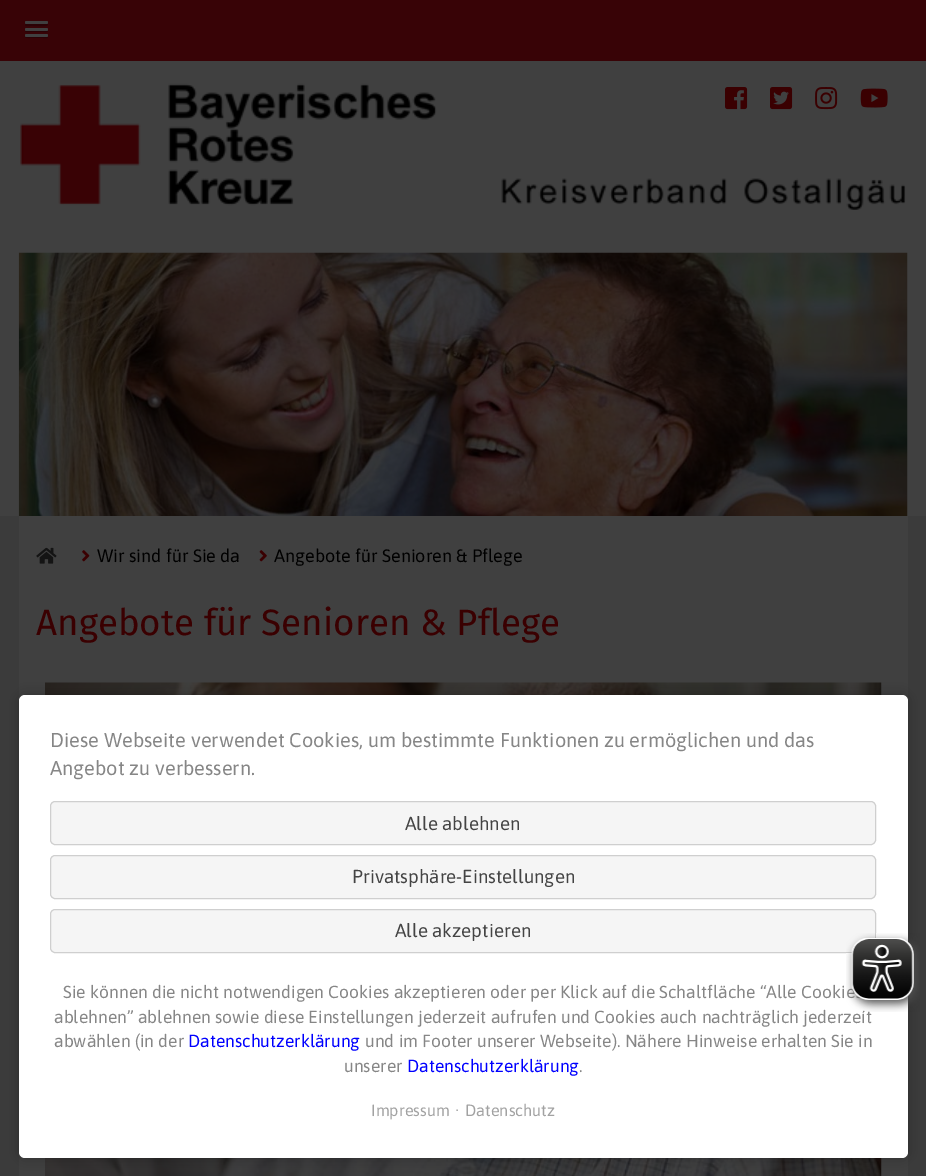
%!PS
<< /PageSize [926 1176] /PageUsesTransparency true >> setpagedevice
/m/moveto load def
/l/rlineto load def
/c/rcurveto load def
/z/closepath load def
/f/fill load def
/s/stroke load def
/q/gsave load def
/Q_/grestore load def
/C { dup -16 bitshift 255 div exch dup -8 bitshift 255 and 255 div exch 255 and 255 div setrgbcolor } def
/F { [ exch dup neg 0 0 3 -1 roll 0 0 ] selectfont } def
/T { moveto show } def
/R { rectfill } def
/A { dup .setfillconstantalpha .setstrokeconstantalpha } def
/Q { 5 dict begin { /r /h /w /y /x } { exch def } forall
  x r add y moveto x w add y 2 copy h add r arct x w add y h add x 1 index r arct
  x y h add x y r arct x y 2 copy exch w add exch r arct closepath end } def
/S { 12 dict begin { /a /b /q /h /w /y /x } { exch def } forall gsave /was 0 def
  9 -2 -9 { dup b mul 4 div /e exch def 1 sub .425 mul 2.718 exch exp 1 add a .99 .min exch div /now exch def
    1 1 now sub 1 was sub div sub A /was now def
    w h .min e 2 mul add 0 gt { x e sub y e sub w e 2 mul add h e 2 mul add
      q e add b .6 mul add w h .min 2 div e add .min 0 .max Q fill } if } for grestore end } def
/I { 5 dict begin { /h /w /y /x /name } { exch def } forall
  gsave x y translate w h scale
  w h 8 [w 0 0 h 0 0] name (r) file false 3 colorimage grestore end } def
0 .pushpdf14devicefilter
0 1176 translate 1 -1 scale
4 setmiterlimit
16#404040 C
0 0 926 1176 R
16#380306 C
0 0 926 61 R
16#2A0205 C
25.5 23.5 m -.5 1.5 l .5 2 4 1 5 1 c 3 0 l 2 0 13.5 .5 14.5 -.5 c .5 -.5 .5 -1.5 0 -2.5 c -1 .5 l -2 .5 -20.5 .5 -21 0 c z f
16#404040 C
25 21 23 3 1.5 Q f
16#2A0205 C
25.5 29.5 m -.5 1.5 l .5 2 4 1 5 1 c 13 0 l 1.5 0 5 1 5 -1.5 c -.5 -1 l -1 .5 l -2 .5 -20.5 .5 -21 -.5 c z f
16#404040 C
25 28 23 3 1.5 Q f
16#2A0205 C
25 35.5 m -1.5 3 4.5 2.5 5 2.5 c 13 0 l 1 0 4.5 1 5 -1 c 0 -.5 0 -1.5 -.5 -1.5 c -1 .5 l -20.5 0 l z f
16#404040 C
25 34 23 3 1.5 Q f
(3.rgb) 725 87 23 23 I
(4.rgb) 770 87 23 23 I
(5.rgb) 815 87 23 23 I
(6.rgb) 860 88 28 20 I
(1.rgb) 20 83 886 127 I
(2.rgb) 18 252 890 264 I
16#3B3B3B C
0 516 926 660 R
16#404040 C
19 516 889 660 R
(7.rgb) 36 547 21 17 I
(8.rgb) 82 550 8 12 I
/Asap-Regular 18 F
16#000000 C
(Wir sind für Sie da) 97 562 T
(9.rgb) 259 550 8 12 I
(Angebote für Senioren & Pflege) 274 562 T
/FiraSans-Regular 36.7 F
16#3A0001 C
(Angebote für Senioren & Pflege) 36 635 T
(10.rgb) 45 682 837 494 I
16#000000 C
19 695 889 463 6 6 .25 S
16#FFFFFF C
19 695 889 463 6 Q f
/Asap-Regular 20 F
16#868686 C
(Diese Webseite verwendet Cookies, um bestimmte Funktionen zu ermöglichen und das) 50 747 T
(Angebot zu verbessern.) 50 775 T
16#F5F5F5 C
50.5 801.5 825 43 4.5 Q q f Q_
16#CFCFCF C
s
/Asap-Regular 18.75 F
16#444444 C
(Alle ablehnen) 405 830 T
16#F5F5F5 C
50.5 855.5 825 43 4.5 Q q f Q_
16#CFCFCF C
s
16#444444 C
(Privatsphäre-Einstellungen) 352 883 T
16#F5F5F5 C
50.5 909.5 825 43 4.5 Q q f Q_
16#CFCFCF C
s
16#444444 C
(Alle akzeptieren) 395 937 T
/Asap-Regular 17.5 F
16#868686 C
(Sie können die nicht notwendigen Cookies akzeptieren oder per Klick auf die Schaltfläche “Alle Cookie) 63 998 T
(ablehnen” ablehnen sowie diese Einstellungen jederzeit aufrufen und Cookies auch nachträglich jederzeit) 54 1023 T
(abwählen \(in der) 54 1047 T
16#0000FF C
(Datenschutzerklärung) 188 1047 T
16#868686 C
(und im Footer unserer Webseite\). Nähere Hinweise erhalten Sie in) 365 1047 T
(unserer) 344 1072 T
16#0000FF C
(Datenschutzerklärung) 407 1072 T
16#868686 C
(.) 579 1072 T
/Asap-Regular 16.25 F
16#A2A2A2 C
(Impressum) 371 1116 T
(·) 455 1116 T
(Datenschutz) 465 1116 T
(11.rgb) 846 933 74 79 I
.poppdf14devicefilter showpage
